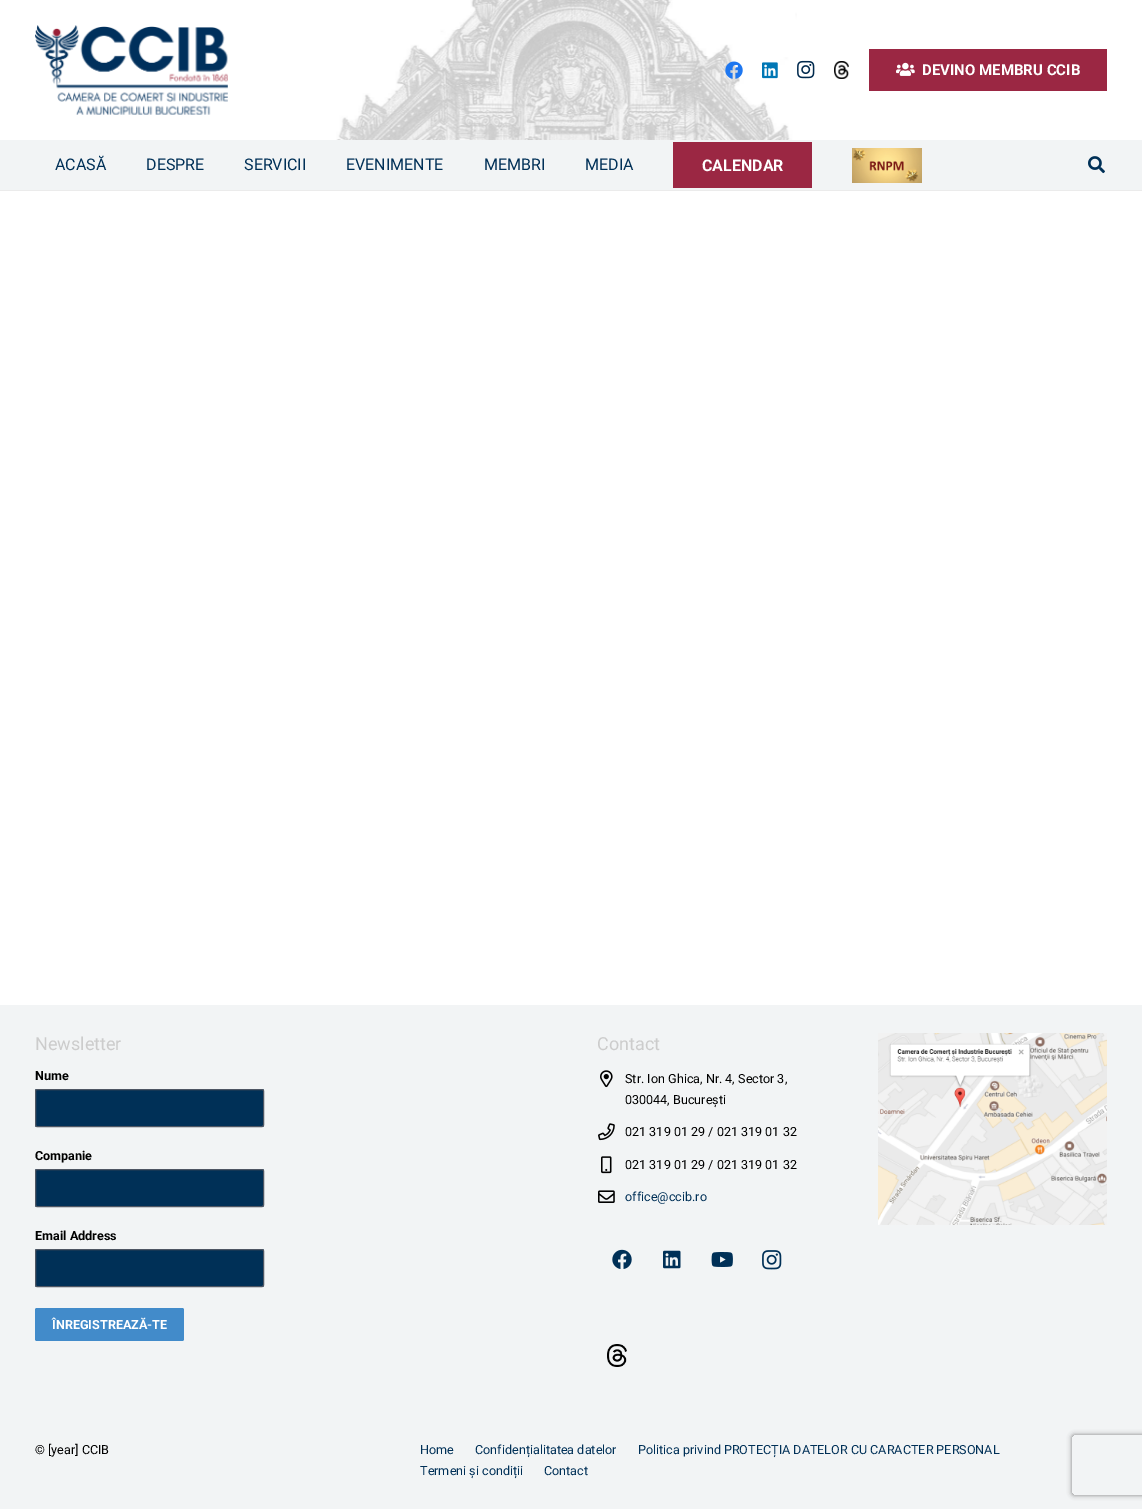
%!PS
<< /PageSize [1142 1509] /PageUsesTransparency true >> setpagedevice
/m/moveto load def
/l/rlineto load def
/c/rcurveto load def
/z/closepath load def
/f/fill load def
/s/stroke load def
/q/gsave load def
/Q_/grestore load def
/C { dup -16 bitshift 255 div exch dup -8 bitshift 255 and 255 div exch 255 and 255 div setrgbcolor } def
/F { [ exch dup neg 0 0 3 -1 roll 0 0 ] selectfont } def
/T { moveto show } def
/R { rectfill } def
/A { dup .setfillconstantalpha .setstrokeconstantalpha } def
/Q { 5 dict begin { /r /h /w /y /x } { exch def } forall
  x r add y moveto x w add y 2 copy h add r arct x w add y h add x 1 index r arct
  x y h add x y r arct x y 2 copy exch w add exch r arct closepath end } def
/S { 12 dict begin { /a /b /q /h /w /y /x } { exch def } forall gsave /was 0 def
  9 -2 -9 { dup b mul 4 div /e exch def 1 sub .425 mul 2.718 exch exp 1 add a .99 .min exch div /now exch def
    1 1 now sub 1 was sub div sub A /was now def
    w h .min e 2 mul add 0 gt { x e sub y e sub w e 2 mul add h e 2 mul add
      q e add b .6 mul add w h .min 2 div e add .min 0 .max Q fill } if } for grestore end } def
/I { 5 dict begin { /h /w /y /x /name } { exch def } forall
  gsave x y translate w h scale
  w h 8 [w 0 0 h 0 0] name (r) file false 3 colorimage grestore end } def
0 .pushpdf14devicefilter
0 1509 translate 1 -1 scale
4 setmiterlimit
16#FFFFFF C
0 0 1142 1509 R
(1.rgb) 336 0 461 140 I
(2.rgb) 35 25 193 90 I
(3.rgb) 725 61 18 18 I
(4.rgb) 762 62 16 17 I
(5.rgb) 797 60 18 19 I
(6.rgb) 834 61 15 18 I
16#9B2743 C
869 49 238 42 R
(7.rgb) 896 62 19 14 I
/Roboto-Bold 15 F
16#FFFFFF C
(DEVINO MEMBRU CCIB) 922 75 T
16#EBEBEB C
0 190 1142 1 R
16#F2F4F5 C
0 140 1142 50 R
/Roboto-Regular 16 F
16#003057 C
(ACASĂ) 55 170 T
(DESPRE) 146 170 T
(SERVICII) 244 170 T
(EVENIMENTE) 346 170 T
(MEMBRI) 484 170 T
(MEDIA) 585 170 T
16#9B2743 C
673 142 139 46 R
/Roboto-Bold 16 F
16#FFFFFF C
(CALENDAR) 702 171 T
(8.rgb) 852 148 70 35 I
(9.rgb) 1088 156 17 18 I
16#F2F4F5 C
0 1005 1142 504 R
/Roboto-Regular 18 F
16#CCCCCC C
(Newsletter) 35 1050 T
/Roboto-Bold 12.6 F
16#000000 C
(Nume) 35 1080 T
16#003057 C
35 1089 229 38 2 Q f
16#002C50 C
37 1091 m 226 0 l 0 1 l 0 -2 l -226 0 l -1 0 -1 1 -1 2 c 0 -1 0 -1 1 -1 c z f
16#4E5663 C
35.5 1089.5 228 37 1.5 Q s
16#000000 C
(Companie) 35 1160 T
16#003057 C
35 1169 229 38 2 Q f
16#002C50 C
37 1171 m 226 0 l 0 1 l 0 -2 l -226 0 l -1 0 -1 1 -1 2 c 0 -1 0 -1 1 -1 c z f
16#4E5663 C
35.5 1169.5 228 37 1.5 Q s
16#000000 C
(Email Address) 35 1240 T
16#003057 C
35 1249 229 38 2 Q f
16#002C50 C
37 1251 m 226 0 l 0 1 l 0 -2 l -226 0 l -1 0 -1 1 -1 2 c 0 -1 0 -1 1 -1 c z f
16#4E5663 C
35.5 1249.5 228 37 1.5 Q s
16#428BCA C
35 1308 149 33 2 Q f
16#FFFFFF C
(ÎNREGISTREAZĂ-TE) 52 1329 T
/Roboto-Regular 18 F
16#CCCCCC C
(Contact) 597 1050 T
(10.rgb) 600 1070 13 18 I
/Roboto-Regular 12.6 F
16#000000 C
(Str. Ion Ghica, Nr. 4, Sector 3,) 625 1083 T
(030044, București) 625 1104 T
(11.rgb) 598 1123 17 18 I
(021 319 01 29 / 021 319 01 32) 625 1136 T
(12.rgb) 601 1156 11 18 I
(021 319 01 29 / 021 319 01 32) 625 1169 T
(13.rgb) 598 1190 17 13 I
16#003057 C
(office@ccib.ro) 625 1201 T
(14.rgb) 612 1249 20 20 I
(15.rgb) 663 1250 18 19 I
(16.rgb) 711 1252 22 15 I
(17.rgb) 762 1250 20 20 I
(18.rgb) 607 1344 20 23 I
(19.rgb) 878 1033 229 192 I
16#000000 C
(© [year] CCIB) 35 1454 T
16#003057 C
(Home) 420 1454 T
(Confidențialitatea datelor) 475 1454 T
(Politica privind PROTECȚIA DATELOR CU CARACTER PERSONAL) 638 1454 T
(Termeni și condiții) 420 1475 T
(Contact) 544 1475 T
q
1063 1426 m 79 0 l 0 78 l -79 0 l z 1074 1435 m 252 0 l 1 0 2 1 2 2 c 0 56 l 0 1 -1 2 -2 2 c -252 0 l -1 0 -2 -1 -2 -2 c 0 -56 l 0 -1 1 -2 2 -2 c z eoclip newpath
16#808080 C
1072 1435 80 60 2 2.5 1 S
Q_
.poppdf14devicefilter showpage
